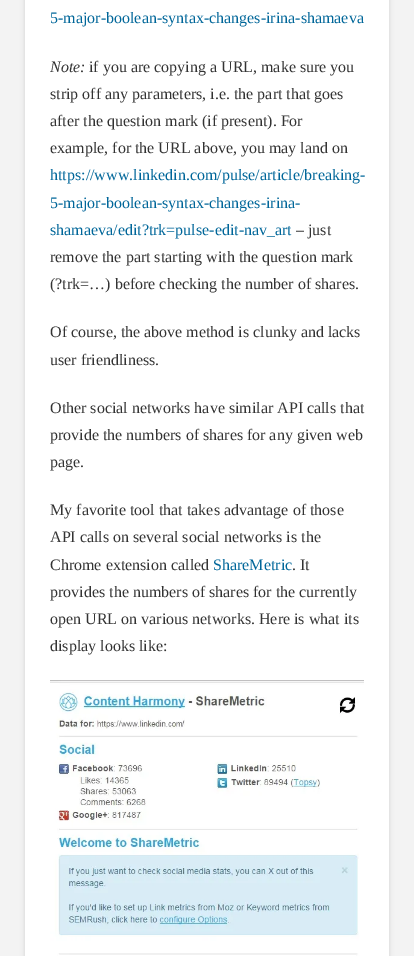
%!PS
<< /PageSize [414 956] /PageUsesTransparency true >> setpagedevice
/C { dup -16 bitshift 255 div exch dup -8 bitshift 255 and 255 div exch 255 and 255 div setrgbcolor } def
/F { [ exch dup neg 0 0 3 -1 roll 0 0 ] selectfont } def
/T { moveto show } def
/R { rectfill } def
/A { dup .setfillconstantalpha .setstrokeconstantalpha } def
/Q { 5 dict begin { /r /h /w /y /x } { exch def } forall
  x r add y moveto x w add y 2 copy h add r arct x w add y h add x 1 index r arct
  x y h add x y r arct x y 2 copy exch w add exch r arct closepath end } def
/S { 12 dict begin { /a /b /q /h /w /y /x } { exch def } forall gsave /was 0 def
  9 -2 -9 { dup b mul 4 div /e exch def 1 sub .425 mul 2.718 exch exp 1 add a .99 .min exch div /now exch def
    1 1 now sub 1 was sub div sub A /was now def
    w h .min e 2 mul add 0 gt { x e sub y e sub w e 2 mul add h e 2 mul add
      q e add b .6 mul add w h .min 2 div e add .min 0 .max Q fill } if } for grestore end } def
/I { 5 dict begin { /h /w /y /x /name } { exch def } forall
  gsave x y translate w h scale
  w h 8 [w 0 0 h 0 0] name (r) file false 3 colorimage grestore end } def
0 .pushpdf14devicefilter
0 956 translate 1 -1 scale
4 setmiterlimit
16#F3F3F3 C
0 0 414 956 R
16#000000 C
25 -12 364 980 4 2.5 .13 S
16#FFFFFF C
25 0 364 956 R
/LiberationSerif-Regular 16 F
16#006699 C
(5-major-boolean-syntax-changes-irina-shamaeva) 50 23 T
/LiberationSerif-Italic 16 F
16#333333 C
(Note:) 50 72 T
/LiberationSerif-Regular 16 F
(if you are copying a URL, make sure you) 89 72 T
(strip off any parameters, i.e. the part that goes) 50 99 T
(after the question mark \(if present\). For) 50 126 T
(example, for the URL above, you may land on) 50 153 T
16#006699 C
(https://www.linkedin.com/pulse/article/breaking-) 50 180 T
(5-major-boolean-syntax-changes-irina-) 50 208 T
(shamaeva/edit?trk=pulse-edit-nav_art) 50 235 T
16#333333 C
(– just) 296 235 T
(remove the part starting with the question mark) 50 262 T
(\(?trk=…\) before checking the number of shares.) 50 289 T
(Of course, the above method is clunky and lacks) 50 337 T
(user friendliness.) 50 365 T
(Other social networks have similar API calls that) 50 413 T
(provide the numbers of shares for any given web) 50 440 T
(page.) 50 467 T
(My favorite tool that takes advantage of those) 50 515 T
(API calls on several social networks is the) 50 542 T
(Chrome extension called) 50 570 T
16#006699 C
(ShareMetric) 213 570 T
16#333333 C
(. It) 292 570 T
(provides the numbers of shares for the currently) 50 597 T
(open URL on various networks. Here is what its) 50 624 T
(display looks like:) 50 651 T
(1.rgb) 50 680 314 276 I
.poppdf14devicefilter showpage
